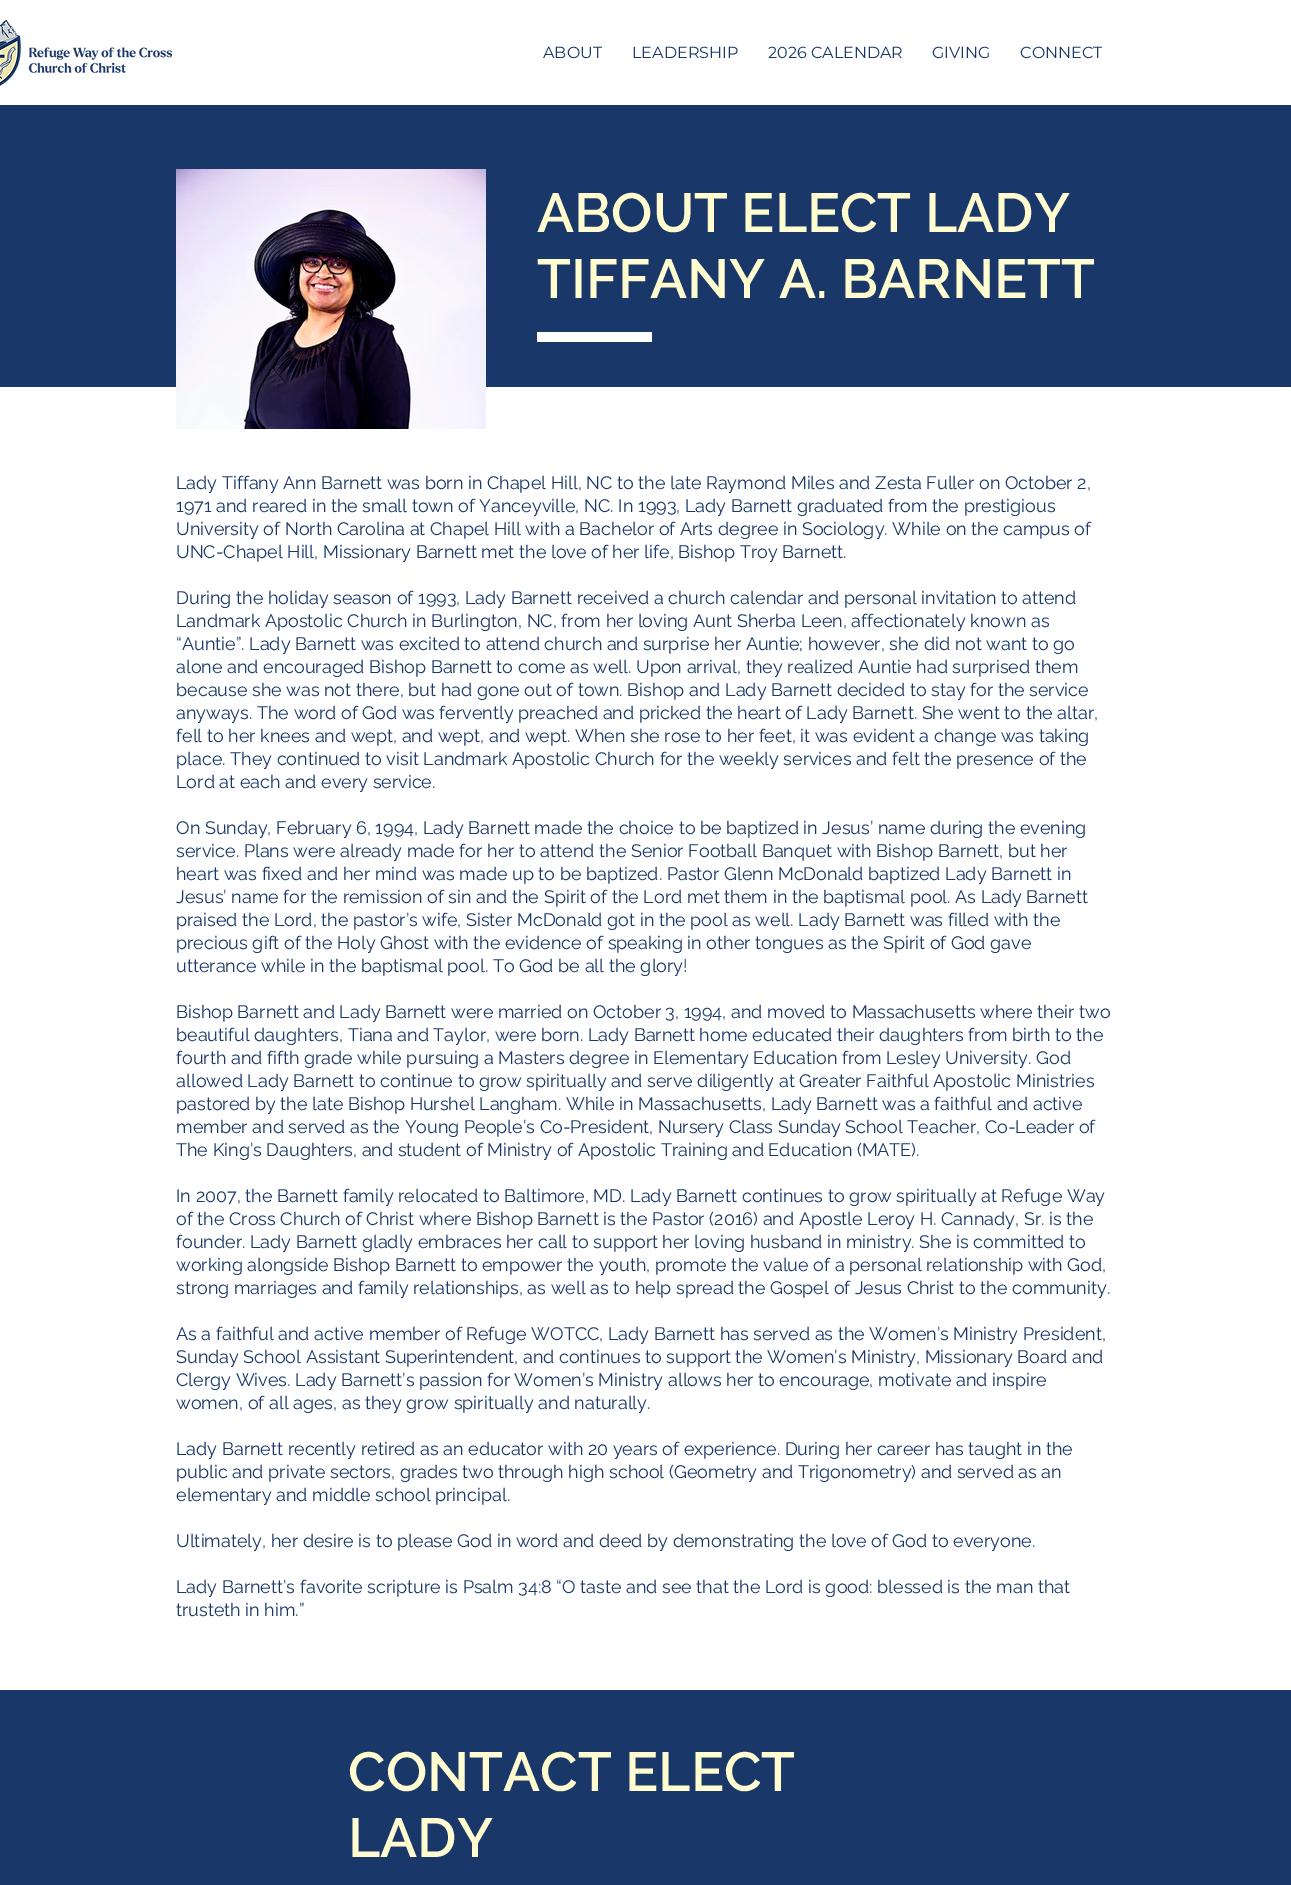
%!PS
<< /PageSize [1291 1885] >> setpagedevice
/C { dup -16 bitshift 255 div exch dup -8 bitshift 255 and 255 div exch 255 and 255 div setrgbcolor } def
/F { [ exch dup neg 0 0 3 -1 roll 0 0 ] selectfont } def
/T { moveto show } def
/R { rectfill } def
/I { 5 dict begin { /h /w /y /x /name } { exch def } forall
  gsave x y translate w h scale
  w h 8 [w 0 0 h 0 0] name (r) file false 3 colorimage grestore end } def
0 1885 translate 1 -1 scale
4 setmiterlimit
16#FFFFFF C
0 0 1291 1885 R
(1.rgb) 0 20 172 66 I
/Montserrat-Regular 16 F
16#193768 C
(ABOUT) 543 58 T
(LEADERSHIP) 632 58 T
(2026 CALENDAR) 768 58 T
(GIVING) 932 58 T
(CONNECT) 1020 58 T
0 105 1291 282 R
(2.rgb) 176 169 310 260 I
/Raleway-SemiBold 55 F
16#FFFDD0 C
(ABOUT ELECT LADY) 537 232 T
(TIFFANY A. BARNETT) 537 298 T
16#FFFFFF C
537 332 115 10 R
/Raleway-Regular 18 F
16#193768 C
(Lady Tiffany Ann Barnett was born in Chapel Hill, NC to the late Raymond Miles and Zesta Fuller on October 2,) 176 489 T
(1971 and reared in the small town of Yanceyville, NC. In 1993, Lady Barnett graduated from the prestigious) 176 512 T
(University of North Carolina at Chapel Hill with a Bachelor of Arts degree in Sociology. While on the campus of) 176 535 T
(UNC-Chapel Hill, Missionary Barnett met the love of her life, Bishop Troy Barnett.) 176 558 T
(During the holiday season of 1993, Lady Barnett received a church calendar and personal invitation to attend) 176 604 T
(Landmark Apostolic Church in Burlington, NC, from her loving Aunt Sherba Leen, affectionately known as) 176 627 T
(“Auntie”. Lady Barnett was excited to attend church and surprise her Auntie; however, she did not want to go) 176 650 T
(alone and encouraged Bishop Barnett to come as well. Upon arrival, they realized Auntie had surprised them) 176 673 T
(because she was not there, but had gone out of town. Bishop and Lady Barnett decided to stay for the service) 176 696 T
(anyways. The word of God was fervently preached and pricked the heart of Lady Barnett. She went to the altar,) 176 719 T
(fell to her knees and wept, and wept, and wept. When she rose to her feet, it was evident a change was taking) 176 742 T
(place. They continued to visit Landmark Apostolic Church for the weekly services and felt the presence of the) 176 765 T
(Lord at each and every service.) 176 788 T
(On Sunday, February 6, 1994, Lady Barnett made the choice to be baptized in Jesus’ name during the evening) 176 834 T
(service. Plans were already made for her to attend the Senior Football Banquet with Bishop Barnett, but her) 176 857 T
(heart was fixed and her mind was made up to be baptized. Pastor Glenn McDonald baptized Lady Barnett in) 176 880 T
(Jesus’ name for the remission of sin and the Spirit of the Lord met them in the baptismal pool. As Lady Barnett) 176 903 T
(praised the Lord, the pastor’s wife, Sister McDonald got in the pool as well. Lady Barnett was filled with the) 176 926 T
(precious gift of the Holy Ghost with the evidence of speaking in other tongues as the Spirit of God gave) 176 949 T
(utterance while in the baptismal pool. To God be all the glory!) 176 972 T
(Bishop Barnett and Lady Barnett were married on October 3, 1994, and moved to Massachusetts where their two) 176 1018 T
(beautiful daughters, Tiana and Taylor, were born. Lady Barnett home educated their daughters from birth to the) 176 1041 T
(fourth and fifth grade while pursuing a Masters degree in Elementary Education from Lesley University. God) 176 1064 T
(allowed Lady Barnett to continue to grow spiritually and serve diligently at Greater Faithful Apostolic Ministries) 176 1087 T
(pastored by the late Bishop Hurshel Langham. While in Massachusetts, Lady Barnett was a faithful and active) 176 1110 T
(member and served as the Young People’s Co-President, Nursery Class Sunday School Teacher, Co-Leader of) 176 1133 T
(The King’s Daughters, and student of Ministry of Apostolic Training and Education \(MATE\).) 176 1156 T
(In 2007, the Barnett family relocated to Baltimore, MD. Lady Barnett continues to grow spiritually at Refuge Way) 176 1202 T
(of the Cross Church of Christ where Bishop Barnett is the Pastor \(2016\) and Apostle Leroy H. Cannady, Sr. is the) 176 1225 T
(founder. Lady Barnett gladly embraces her call to support her loving husband in ministry. She is committed to) 176 1248 T
(working alongside Bishop Barnett to empower the youth, promote the value of a personal relationship with God,) 176 1271 T
(strong marriages and family relationships, as well as to help spread the Gospel of Jesus Christ to the community.) 176 1294 T
(As a faithful and active member of Refuge WOTCC, Lady Barnett has served as the Women’s Ministry President,) 176 1340 T
(Sunday School Assistant Superintendent, and continues to support the Women’s Ministry, Missionary Board and) 176 1363 T
(Clergy Wives. Lady Barnett’s passion for Women’s Ministry allows her to encourage, motivate and inspire) 176 1386 T
(women, of all ages, as they grow spiritually and naturally.) 176 1409 T
(Lady Barnett recently retired as an educator with 20 years of experience. During her career has taught in the) 176 1455 T
(public and private sectors, grades two through high school \(Geometry and Trigonometry\) and served as an) 176 1478 T
(elementary and middle school principal.) 176 1501 T
(Ultimately, her desire is to please God in word and deed by demonstrating the love of God to everyone.) 176 1547 T
(Lady Barnett’s favorite scripture is Psalm 34:8 “O taste and see that the Lord is good: blessed is the man that) 176 1593 T
(trusteth in him.”) 176 1616 T
0 1690 1291 195 R
/Raleway-SemiBold 55 F
16#FFFDD0 C
(CONTACT ELECT) 348 1791 T
(LADY) 348 1857 T
showpage
